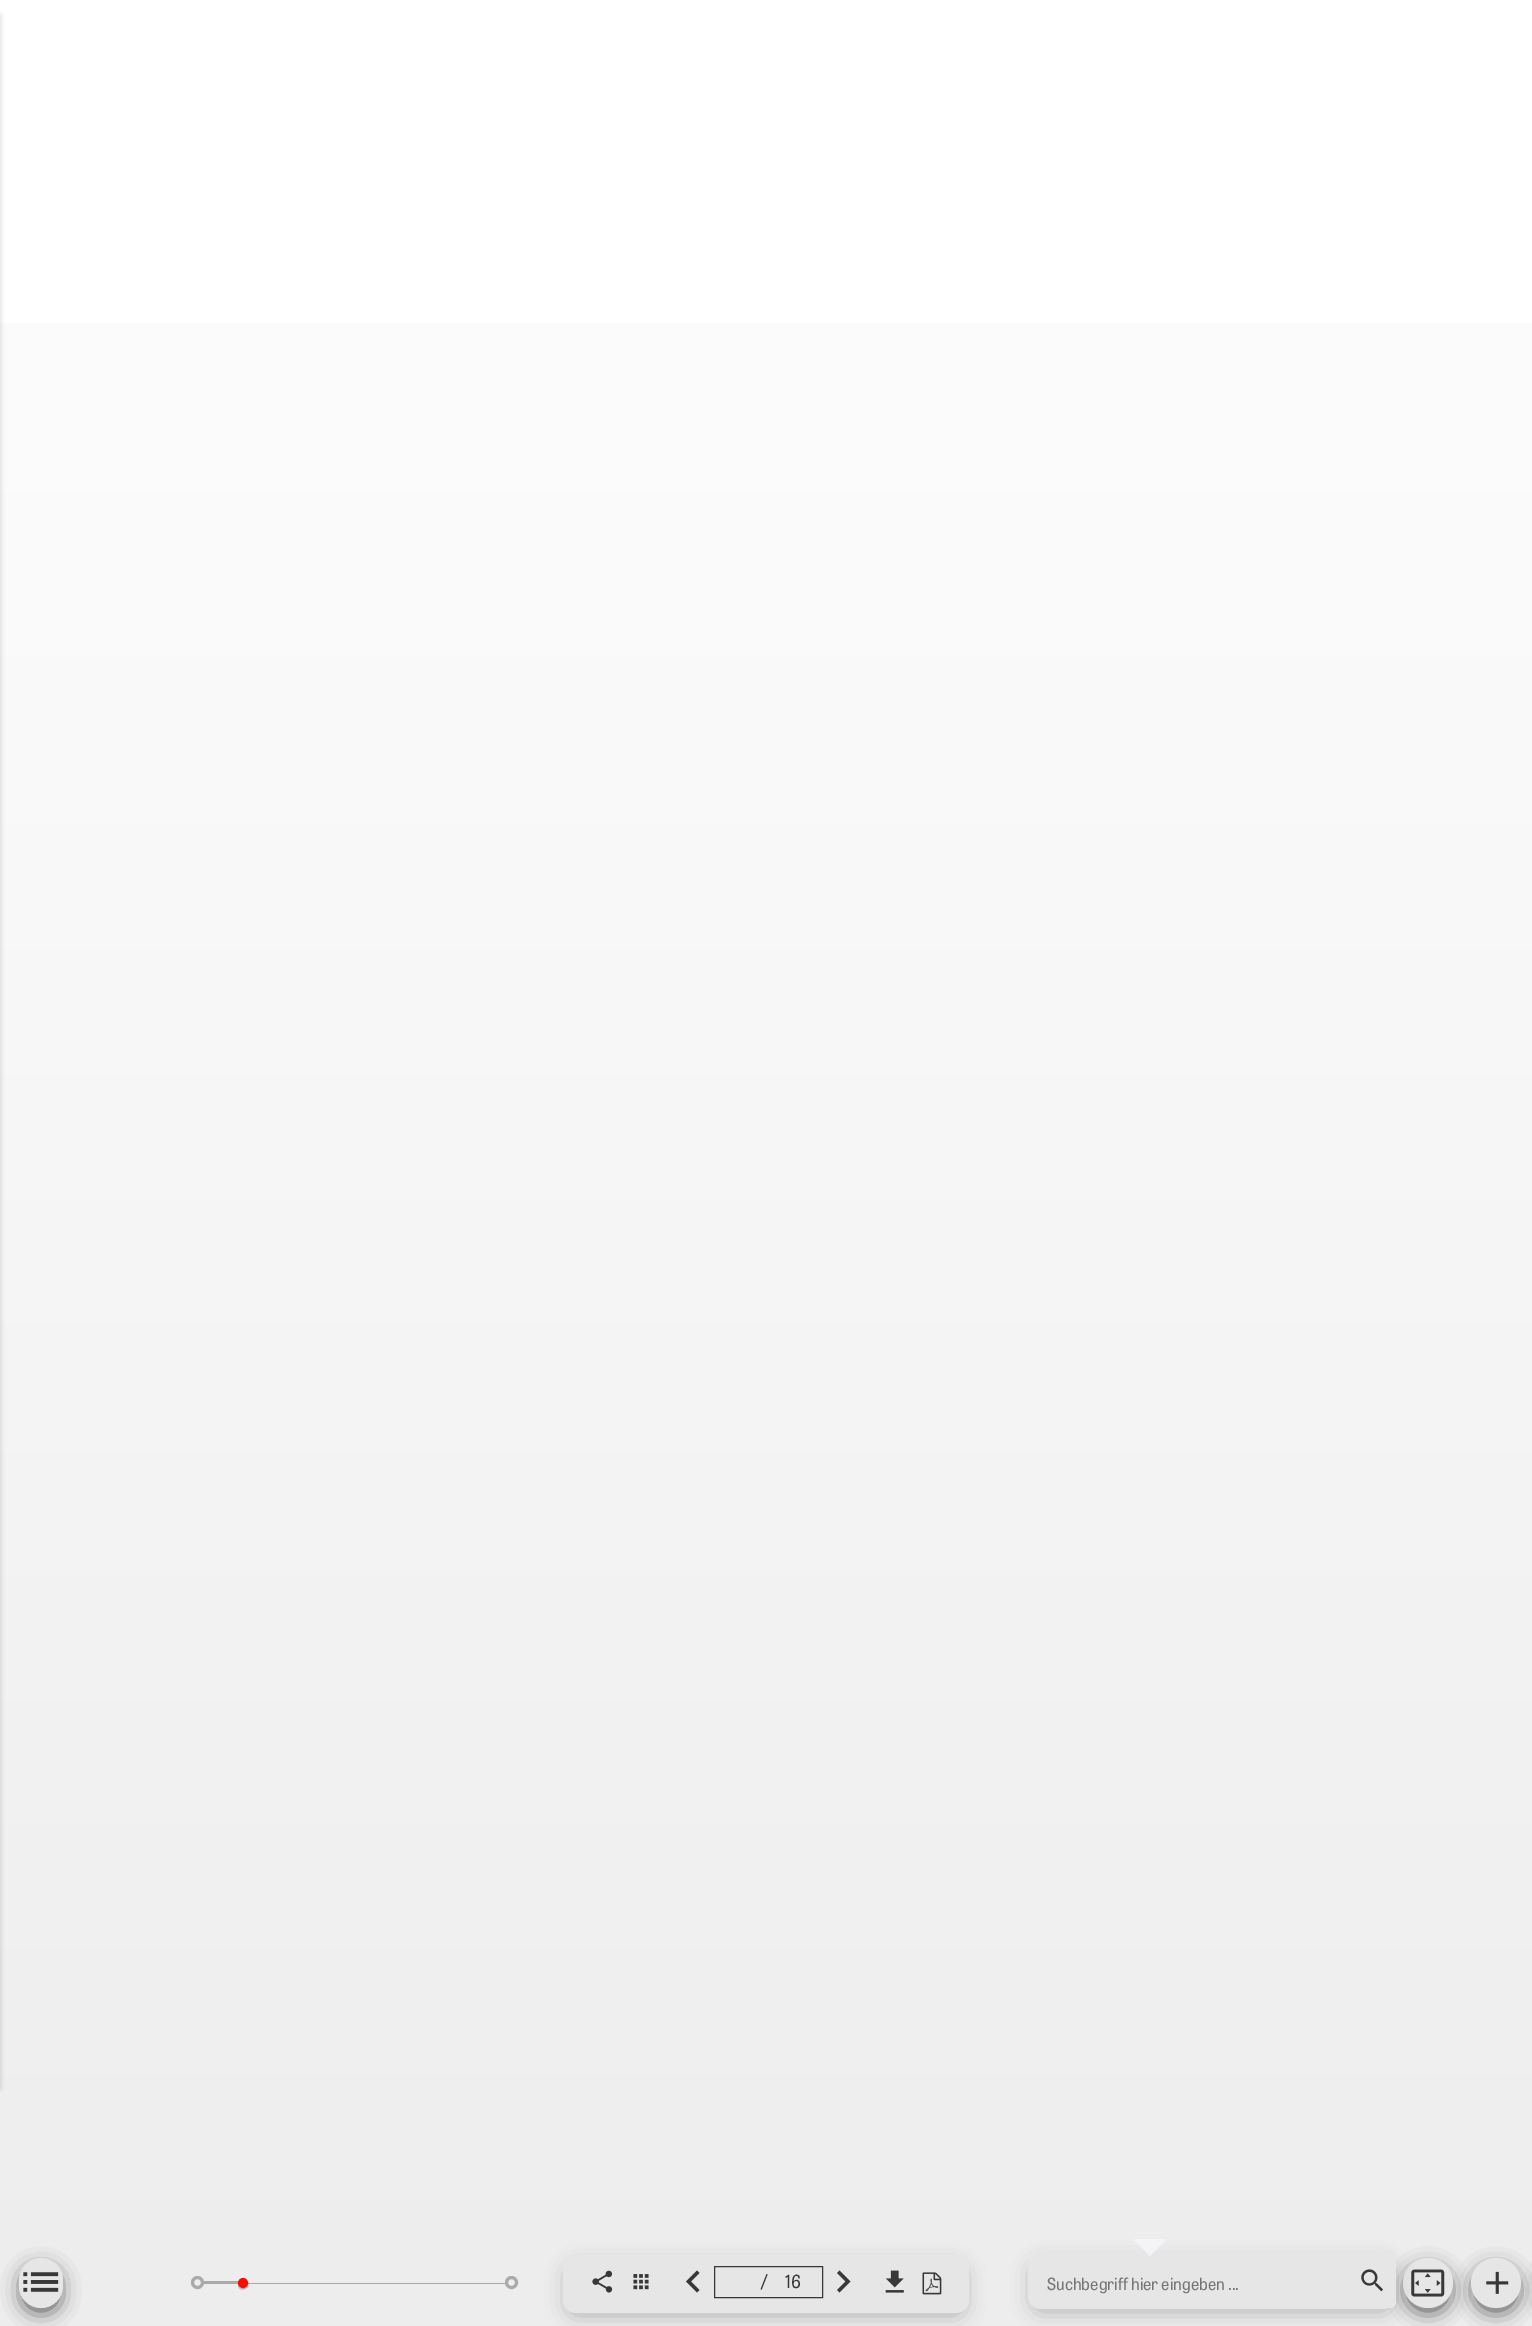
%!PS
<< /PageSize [1532 2326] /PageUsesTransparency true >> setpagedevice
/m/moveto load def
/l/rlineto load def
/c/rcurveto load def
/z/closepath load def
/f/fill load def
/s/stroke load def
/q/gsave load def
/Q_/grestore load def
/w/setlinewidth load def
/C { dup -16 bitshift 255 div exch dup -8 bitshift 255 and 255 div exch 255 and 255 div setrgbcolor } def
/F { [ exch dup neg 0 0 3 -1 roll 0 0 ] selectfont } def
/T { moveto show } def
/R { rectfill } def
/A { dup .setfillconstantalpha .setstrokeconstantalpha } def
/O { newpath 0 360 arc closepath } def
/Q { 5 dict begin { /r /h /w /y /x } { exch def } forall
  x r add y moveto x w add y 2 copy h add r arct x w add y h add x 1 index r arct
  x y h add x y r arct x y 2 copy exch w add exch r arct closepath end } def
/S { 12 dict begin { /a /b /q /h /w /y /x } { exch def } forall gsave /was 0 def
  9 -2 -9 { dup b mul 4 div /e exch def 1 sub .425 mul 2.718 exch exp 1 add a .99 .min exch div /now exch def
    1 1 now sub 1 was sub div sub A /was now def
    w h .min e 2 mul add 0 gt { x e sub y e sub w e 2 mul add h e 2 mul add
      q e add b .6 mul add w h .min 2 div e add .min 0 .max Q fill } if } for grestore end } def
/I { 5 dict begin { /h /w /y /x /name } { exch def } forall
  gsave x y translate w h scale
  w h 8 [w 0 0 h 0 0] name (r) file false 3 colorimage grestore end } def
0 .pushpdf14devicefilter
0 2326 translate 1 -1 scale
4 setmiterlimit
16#FFFFFF C
0 0 1532 2326 R
q 0 323 m 1532 0 l 0 2003 l -1532 0 l z clip newpath
<< /ShadingType 2 /ColorSpace /DeviceRGB /Coords [766 0 766 2326] /Extend [true true] /Function << /FunctionType 2 /Domain [0 1] /C0 [1 1 1] /C1 [.929 .929 .929] /N 1 >> >> shfill Q_
16#000000 C
-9 16 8 2072 0 3 .25 S
1408 2270 40 40 20 10.5 .75 S
16#E6E6E6 C
1428 2283 25 O f
(7.rgb) 1411 2269 34 28 I
16#000000 C
1033 2264 358 47 8 10.5 .25 S
16#E6E6E6 C
1028 2251 368 58 13 Q f
16#F4F4F6 C
1134 2240 m 32 0 l -16 16 l z f
1134 2239 m 32 0 l -16 16 l z f
16#000000 C
24 2270 34 40 17 10.5 .75 S
16#E6E6E6 C
19 2258 44 50 22 Q f
(1.rgb) 23 2272 36 20 I
16#AAAAAA C
198 2281 45 3 R
16#EEEEEE C
197.5 2282.5 5 O q f Q_
16#AAAAAA C
3 w
s
243 2283 268 1 R
16#EEEEEE C
511.5 2282.5 5 O q f Q_
16#AAAAAA C
s
16#BEBEBE C
238 2284.5 m -.5 8.5 13 5.5 9.5 -1.5 c -.5 5 -7.5 6 -9.5 1.5 c z f
16#F70C00 C
243 2283 4.5 O q f Q_
1 w
s
16#000000 C
568 2266 396 49 8 10.5 .25 S
16#E6E6E6 C
563 2254 406 59 13 Q f
(2.rgb) 592 2270 21 23 I
(3.rgb) 633 2274 16 16 I
16#383838 C
699.5 2290 m -2.5 2.5 l -11 -11 l 11 -11 l 2.5 2.5 l -8.5 8.5 l z f
714.5 2266.5 108 31 rectstroke
/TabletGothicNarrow-Regular 18 F
(/) 761 2288 T
(16) 785 2288 T
837 2290 m 8.5 -8.5 l -8.5 -8.5 l 2.5 -2.5 l 11 11 l -11 11 l z f
(4.rgb) 885 2270 19 23 I
(5.rgb) 922 2272 20 23 I
/TabletGothicNarrow-Regular 16.75 F
16#757575 C
(Suchbegriff hier eingeben ...) 1047 2290 T
16#E6E6E6 C
1346 2251 m 44 0 l 3.5 0 6 2.5 6 6 c 0 45 l 0 3.5 -2.5 6 -6 6 c -44 0 l z f
(6.rgb) 1361 2269 22 23 I
16#000000 C
1476 2270 40 40 20 10.5 .75 S
16#E6E6E6 C
1496 2283 25 O f
(8.rgb) 1486 2271 23 23 I
16#000000 C
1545 2270 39 40 20 10.5 .75 S
.poppdf14devicefilter showpage
